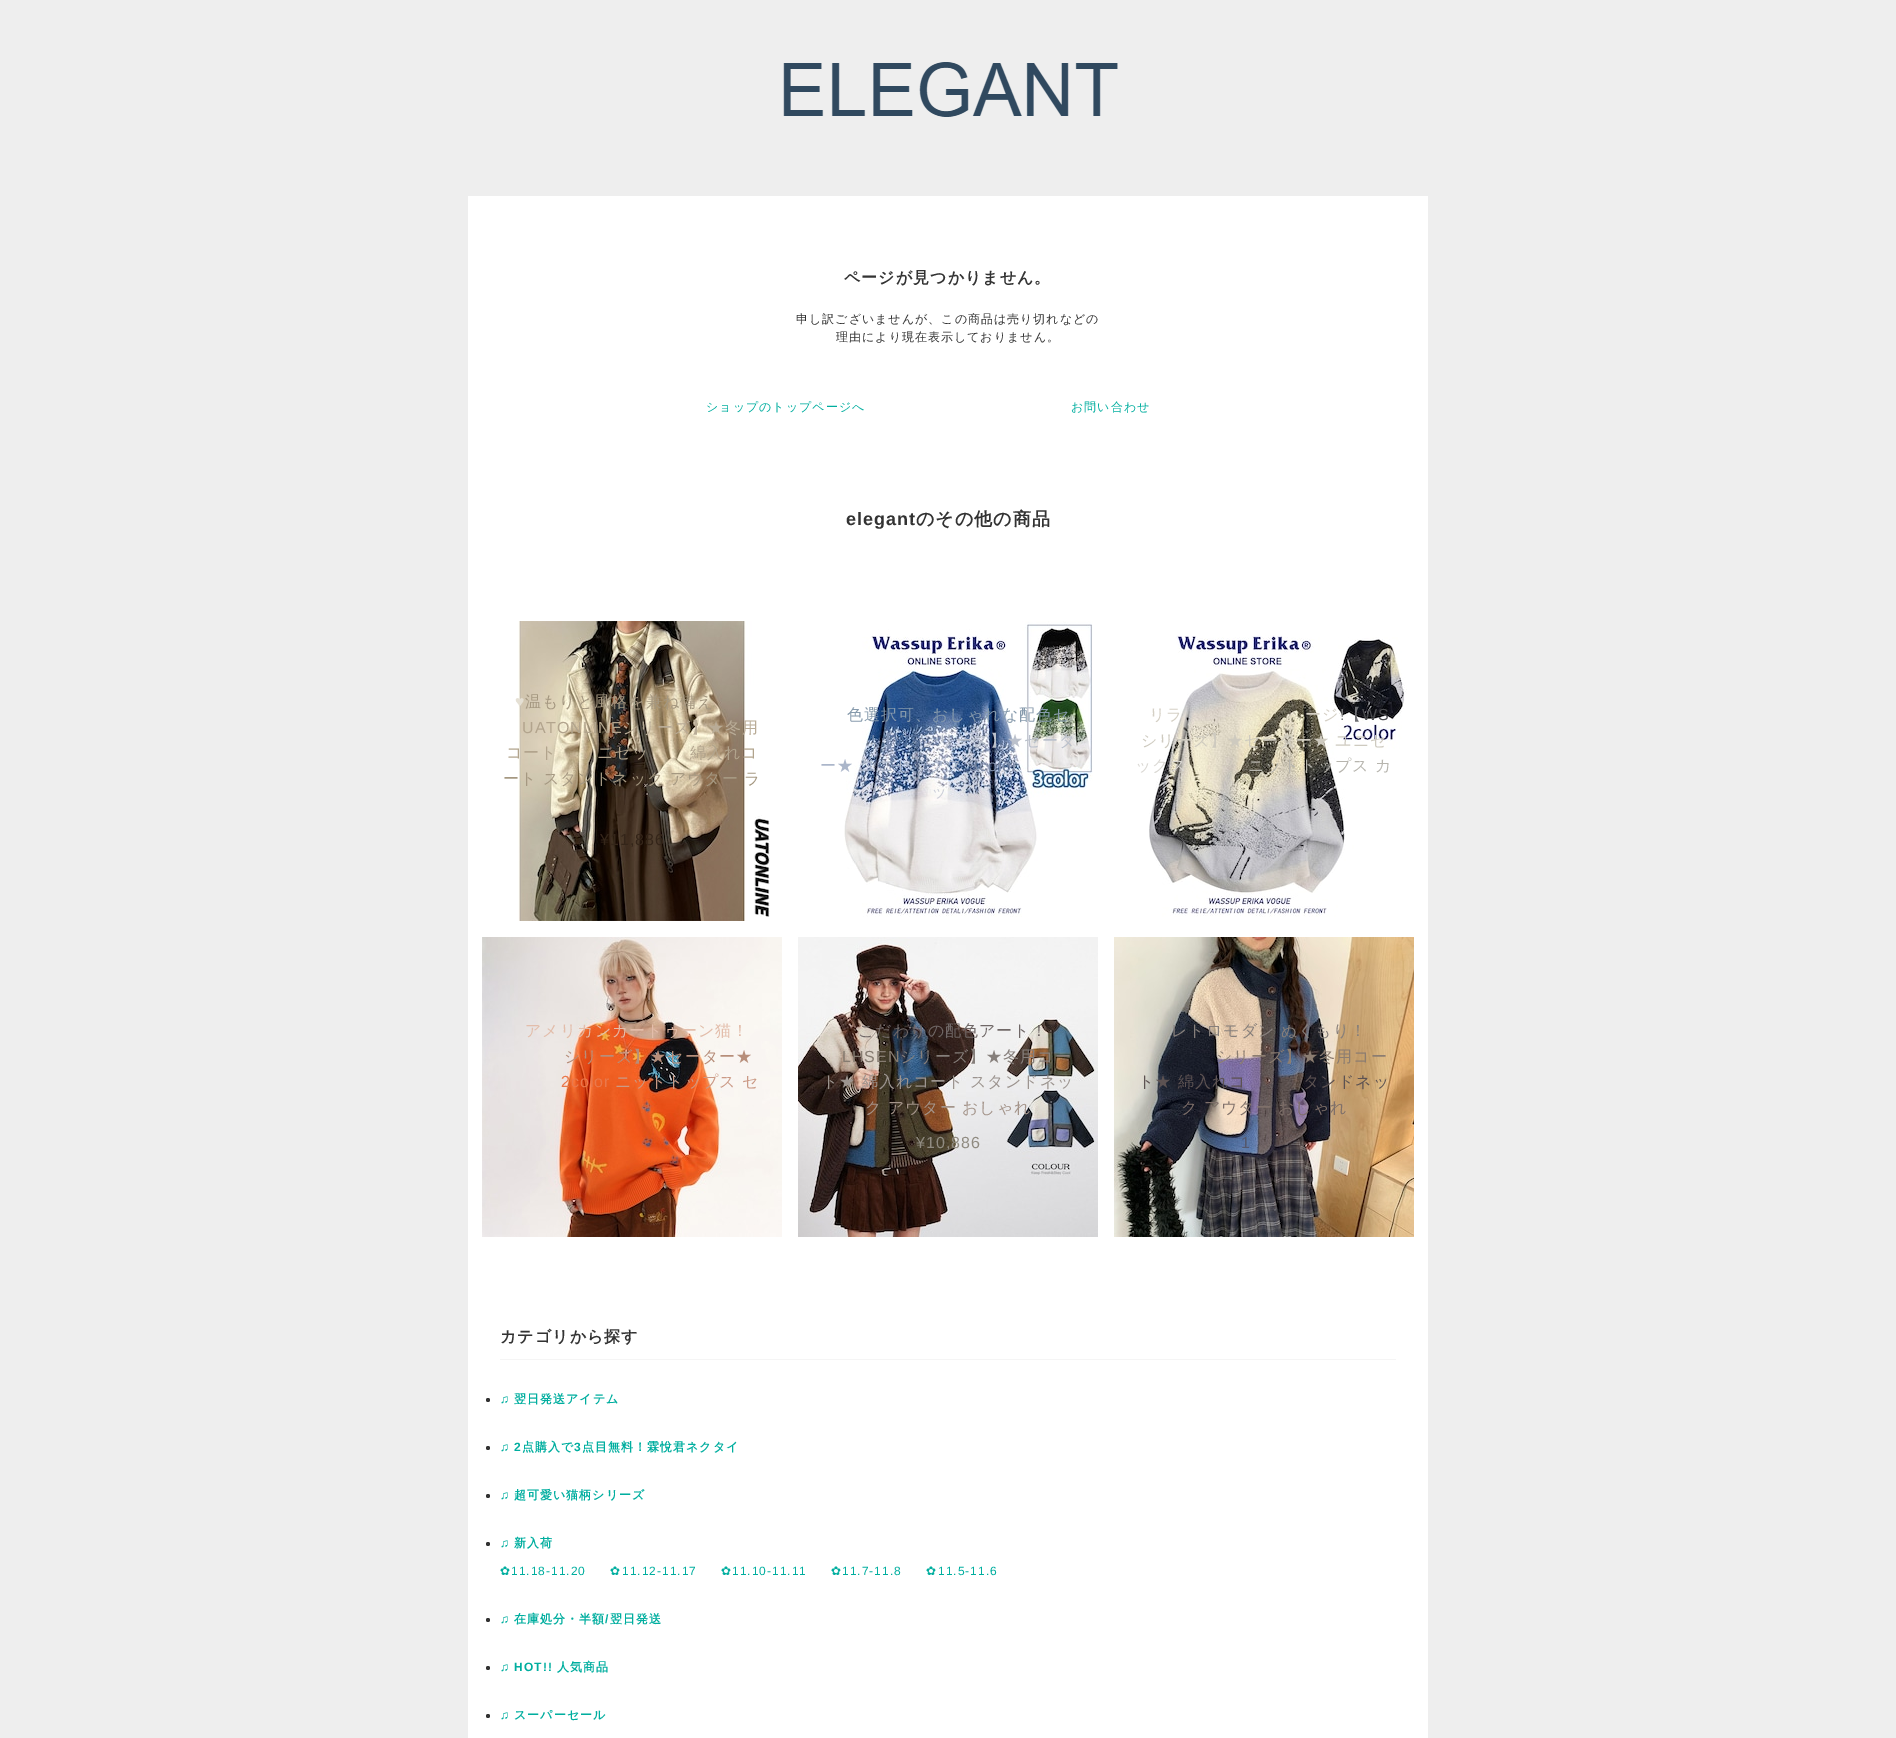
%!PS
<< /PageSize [1896 1738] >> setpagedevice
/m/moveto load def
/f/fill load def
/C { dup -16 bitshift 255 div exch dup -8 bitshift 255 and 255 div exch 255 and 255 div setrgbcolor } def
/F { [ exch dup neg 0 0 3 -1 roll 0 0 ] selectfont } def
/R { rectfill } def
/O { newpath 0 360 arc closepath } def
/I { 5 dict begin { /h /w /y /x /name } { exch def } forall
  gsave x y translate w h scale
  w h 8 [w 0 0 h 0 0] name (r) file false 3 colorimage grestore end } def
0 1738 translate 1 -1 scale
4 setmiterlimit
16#EEEEEE C
0 0 1896 1738 R
(1.rgb) 783 62 335 55 I
16#FFFFFF C
468 196 960 1542 R
/WenQuanYiZenHei-Bold 16 F
16#333333 C
844 283 m 1 0 (ページが見つかりません。) ashow
/WenQuanYiZenHei-Medium 12 F
796 323 m 1 0 (申し訳ございませんが、この商品は売り切れなどの) ashow
836 341 m 1 0 (理由により現在表示しておりません。) ashow
16#00AE9F C
706 411 m 1 0 (ショップのトップページへ) ashow
1071 411 m 1 0 (お問い合わせ) ashow
/LiberationSans-Bold 18 F
16#333333 C
846 525 m 1 0 (elegant) ashow
/WenQuanYiZenHei-Bold 18 F
916 525 m 1 0 (のその他の商品) ashow
(2.rgb) 518 621 252 300 I
/LiberationSans-Regular 16 F
16#E5E0D4 C
515 707 m 1 0 (♥) ashow
/WenQuanYiZenHei-Medium 16 F
16#A59881 C
525 707 m 1 0 (温もりと風格を兼ね備え) ashow
/LiberationSans-Regular 16 F
16#B2A48D C
522 733 m 1 0 (UATONLINE) ashow
/WenQuanYiZenHei-Medium 16 F
16#B9AC97 C
622 733 m 1 0 (シリーズ】★冬用) ashow
16#B2A48D C
506 758 m -.5 0 32 1 0 (コート) awidthshow
597 758 m -.5 0 32 1 0 (ニセッ) awidthshow
690 758 m -.5 0 32 1 0 (綿入れコ) awidthshow
16#A59881 C
503 784 m -.5 0 32 1 0 (ート スタンドネック アウター ラ) awidthshow
/LiberationSans-Regular 16 F
16#342519 C
600 845 m 1 0 (¥11,886) ashow
(3.rgb) 844 621 249 296 I
/WenQuanYiZenHei-Medium 16 F
16#869AAC C
847 720 m 1 0 (色選択可、おしゃれな配色セ) ashow
/LiberationSans-Regular 16 F
16#6A83A8 C
871 746 m 1 0 (!) ashow
/WenQuanYiZenHei-Medium 16 F
16#8293B2 C
877 746 m 1 0 (【) ashow
/LiberationSans-Regular 16 F
16#546F99 C
894 746 m 1 0 (WS) ashow
/WenQuanYiZenHei-Medium 16 F
16#BBC1CC C
921 746 m 1 0 (シリーズ】★セータ) ashow
16#ABB6CA C
820 771 m 1 0 (ー★ ユニセックス) ashow
/LiberationSans-Regular 16 F
16#7E8CA7 C
969 771 m 1 0 (3color) ashow
/WenQuanYiZenHei-Medium 16 F
16#CBCED8 C
931 797 m 1 0 (ッ) ashow
(4.rgb) 1149 635 258 282 I
16#D5D0C5 C
1149 720 m 1 0 (リラ) ashow
1305 720 m 1 0 (ージ) ashow
/LiberationSans-Regular 16 F
16#7D7D7E C
1340 720 m 1 0 (!) ashow
/WenQuanYiZenHei-Medium 16 F
16#6D6E72 C
1345 720 m 1 0 (【) ashow
/LiberationSans-Regular 16 F
16#4B4C4F C
1362 720 m 1 0 (WS) ashow
/WenQuanYiZenHei-Medium 16 F
16#CECABF C
1141 746 m -.5 0 32 1 0 (シリーズ】★セーター★ ユニセ) awidthshow
16#DAD8D3 C
1135 771 m 1 0 (ックス) ashow
16#B7B5AE C
1248 771 m 1 0 (ニットトップス カ) ashow
(5.rgb) 482 937 300 300 I
16#E3BDAA C
525 1036 m 1 0 (アメリカンカートゥーン猫！) ashow
16#B78E7A C
564 1062 m 1 0 (シリーズ】★セーター★) ashow
/LiberationSans-Regular 16 F
16#EA784B C
561 1087 m 1 0 (2color) ashow
/WenQuanYiZenHei-Medium 16 F
16#CB9A86 C
615 1087 m 1 0 (ニットトップス セ) ashow
(6.rgb) 798 937 300 300 I
16#706867 C
858 1036 m 1 0 (こだわりの配色アート！) ashow
/LiberationSans-Regular 16 F
16#857B70 C
842 1062 m 1 0 (LHSEN) ashow
/WenQuanYiZenHei-Medium 16 F
16#867F7B C
900 1062 m 1 0 (シリーズ】★冬用コー) ashow
16#9C948F C
822 1087 m -.5 0 32 1 0 (ト★ 綿入れコート スタンドネッ) awidthshow
16#A4948A C
865 1113 m -.5 0 32 1 0 (ク アウター おしゃれ) awidthshow
/LiberationSans-Regular 16 F
16#908B81 C
916 1148 m 1 0 (¥10,886) ashow
(7.rgb) 1114 937 300 300 I
/WenQuanYiZenHei-Medium 16 F
16#867F7B C
1171 1036 m -.5 0 32 1 0 (レトロモダン ぬくもり！) awidthshow
16#8C7D71 C
1216 1062 m 1 0 (シリーズ】★冬用コー) ashow
16#5C5252 C
1138 1087 m -.5 0 32 1 0 (ト★ 綿入れコ) awidthshow
1303 1087 m -.5 0 32 1 0 (タンドネッ) awidthshow
16#7F706A C
1181 1113 m -.5 0 32 1 0 (ク アウター おしゃれ) awidthshow
/LiberationSans-Regular 16 F
16#54586D C
1241 1148 m 1 0 (1) ashow
16#F5F5F5 C
500 1359 896 1 R
/WenQuanYiZenHei-Bold 16 F
16#333333 C
500 1342 m 1 0 (カテゴリから探す) ashow
488 1400 2 O f
/LiberationSans-Bold 12 F
16#00AE9F C
500 1403 m 1 0 (♫) ashow
/WenQuanYiZenHei-Bold 12 F
514 1403 m 1 0 (翌日発送アイテム) ashow
16#333333 C
488 1448 2 O f
/LiberationSans-Bold 12 F
16#00AE9F C
500 1451 m 1 0 (♫ 2) ashow
/WenQuanYiZenHei-Bold 12 F
522 1451 m 1 0 (点購入で) ashow
/LiberationSans-Bold 12 F
574 1451 m 1 0 (3) ashow
/WenQuanYiZenHei-Bold 12 F
582 1451 m 1 0 (点目無料！霖悅君ネクタイ) ashow
16#333333 C
488 1496 2 O f
/LiberationSans-Bold 12 F
16#00AE9F C
500 1499 m 1 0 (♫) ashow
/WenQuanYiZenHei-Bold 12 F
514 1499 m 1 0 (超可愛い猫柄シリーズ) ashow
16#333333 C
488 1544 2 O f
/LiberationSans-Bold 12 F
16#00AE9F C
500 1547 m 1 0 (♫) ashow
/WenQuanYiZenHei-Bold 12 F
514 1547 m 1 0 (新入荷) ashow
/DejaVuSans-Regular 12 F
500 1575 m 1 0 (✿) ashow
/LiberationSans-Regular 12 F
511 1575 m 1 0 (11.18-11.20) ashow
/DejaVuSans-Regular 12 F
610 1575 m 1 0 (✿) ashow
/LiberationSans-Regular 12 F
622 1575 m 1 0 (11.12-11.17) ashow
/DejaVuSans-Regular 12 F
721 1575 m 1 0 (✿) ashow
/LiberationSans-Regular 12 F
732 1575 m 1 0 (11.10-11.11) ashow
/DejaVuSans-Regular 12 F
831 1575 m 1 0 (✿) ashow
/LiberationSans-Regular 12 F
842 1575 m 1 0 (11.7-11.8) ashow
/DejaVuSans-Regular 12 F
926 1575 m 1 0 (✿) ashow
/LiberationSans-Regular 12 F
938 1575 m 1 0 (11.5-11.6) ashow
16#333333 C
488 1620 2 O f
/WenQuanYiZenHei-Bold 12 F
16#00AE9F C
514 1623 m 1 0 (在庫処分・半額 翌日発送) ashow
/LiberationSans-Bold 12 F
500 1623 m 1 0 (♫) ashow
605 1623 m 1 0 (/) ashow
16#333333 C
488 1668 2 O f
16#00AE9F C
500 1671 m 1 0 (♫ HOT!!) ashow
/WenQuanYiZenHei-Bold 12 F
557 1671 m 1 0 (人気商品) ashow
16#333333 C
488 1716 2 O f
/LiberationSans-Bold 12 F
16#00AE9F C
500 1719 m 1 0 (♫) ashow
/WenQuanYiZenHei-Bold 12 F
514 1719 m 1 0 (スーパーセール) ashow
showpage
